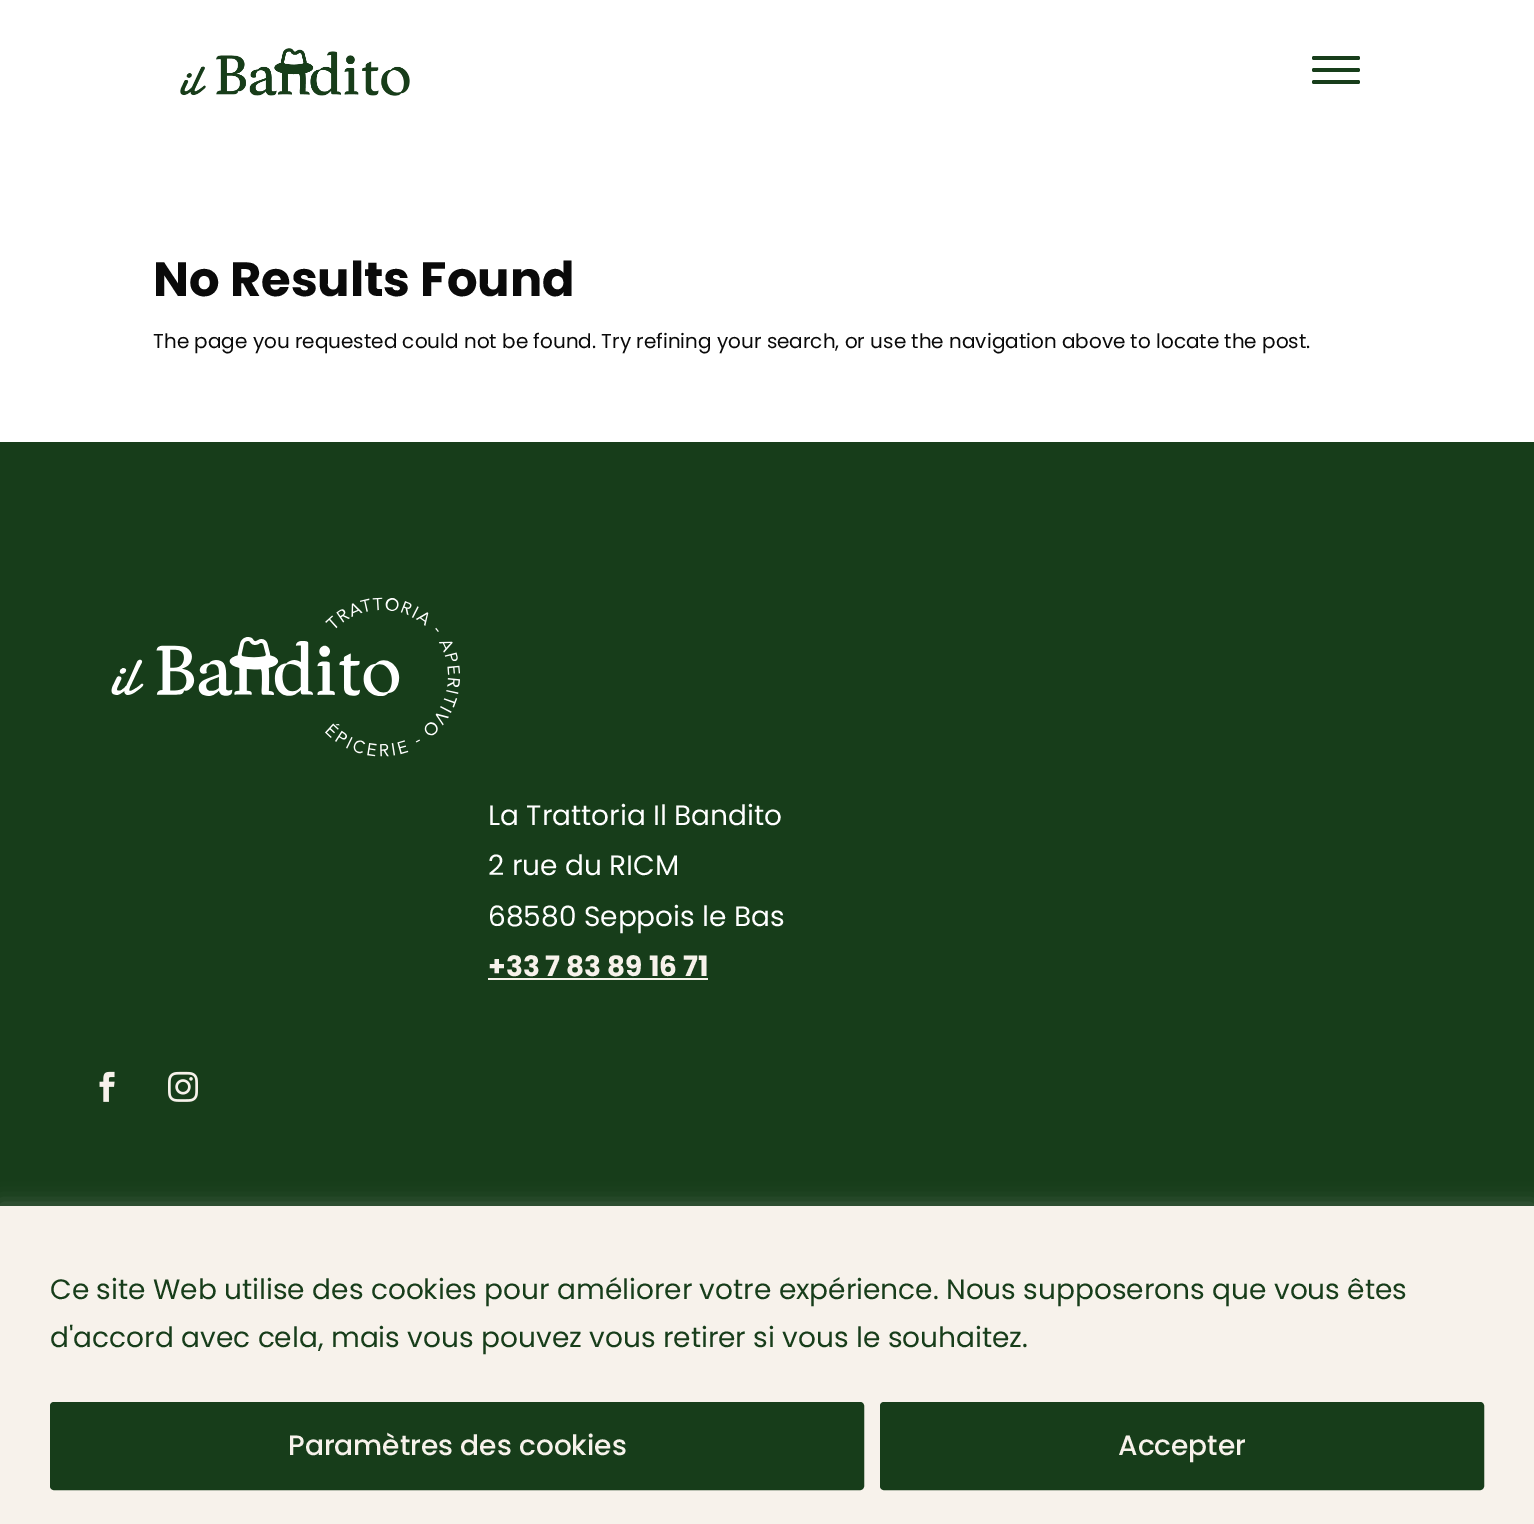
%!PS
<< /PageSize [1534 1524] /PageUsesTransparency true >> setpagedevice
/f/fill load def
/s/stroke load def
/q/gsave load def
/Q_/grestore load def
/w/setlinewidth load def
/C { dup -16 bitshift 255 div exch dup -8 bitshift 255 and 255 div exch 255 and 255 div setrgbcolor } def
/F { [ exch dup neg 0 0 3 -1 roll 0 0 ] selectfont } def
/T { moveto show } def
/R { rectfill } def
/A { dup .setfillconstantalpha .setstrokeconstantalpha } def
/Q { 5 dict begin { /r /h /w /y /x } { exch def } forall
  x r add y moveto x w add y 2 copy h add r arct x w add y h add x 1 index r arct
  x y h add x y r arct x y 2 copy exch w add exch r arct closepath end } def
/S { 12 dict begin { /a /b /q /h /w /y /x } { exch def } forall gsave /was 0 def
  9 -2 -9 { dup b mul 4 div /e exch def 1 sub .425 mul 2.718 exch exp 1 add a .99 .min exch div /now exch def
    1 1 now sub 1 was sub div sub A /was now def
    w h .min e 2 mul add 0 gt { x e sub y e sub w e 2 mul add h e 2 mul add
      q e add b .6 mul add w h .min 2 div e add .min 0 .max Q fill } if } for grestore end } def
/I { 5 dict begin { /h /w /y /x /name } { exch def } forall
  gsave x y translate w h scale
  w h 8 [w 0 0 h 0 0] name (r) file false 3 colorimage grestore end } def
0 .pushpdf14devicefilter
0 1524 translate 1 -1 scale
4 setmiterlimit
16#FFFFFF C
0 0 1534 1524 R
(1.rgb) 180 48 230 48 I
16#173D1A C
1312 56 48 4 2 Q f
1312 68 48 4 2 Q f
1312 80 48 4 2 Q f
/Poppins-Bold 48 F
16#0A0A0A C
(No Results Found) 153 296 T
/Poppins-Regular 20 F
(The page you requested could not be found. Try refining your search, or use the navigation above to locate the post.) 153 348 T
16#173D1A C
0 442 1534 764 R
(2.rgb) 111 597 349 160 I
/Poppins-Regular 28 F
16#FFFFFF C
(La Trattoria Il Bandito) 488 825 T
(2 rue du RICM) 488 875 T
(68580 Seppois le Bas) 488 926 T
/Poppins-Bold 28 F
16#F7F2EB C
(+33 7 83 89 16 71) 488 976 T
488 978 220 2 R
(3.rgb) 99 1071 16 31 I
(4.rgb) 168 1071 30 31 I
16#ACABAB C
0 1204 1534 318 0 10 .3 S
16#F7F2EB C
0 1206 1534 318 R
/Poppins-Regular 28 F
16#173D1A C
(Ce site Web utilise des cookies pour améliorer votre expérience. Nous supposerons que vous êtes) 50 1299 T
(d'accord avec cela, mais vous pouvez vous retirer si vous le souhaitez.) 50 1347 T
52 1404 810 84 2 Q q f Q_
4 w
s
/Poppins-Medium 28 F
16#F7F2EB C
(Paramètres des cookies) 288 1455 T
16#173D1A C
882 1404 600 84 2 Q q f Q_
s
16#F7F2EB C
(Accepter) 1118 1455 T
.poppdf14devicefilter showpage
